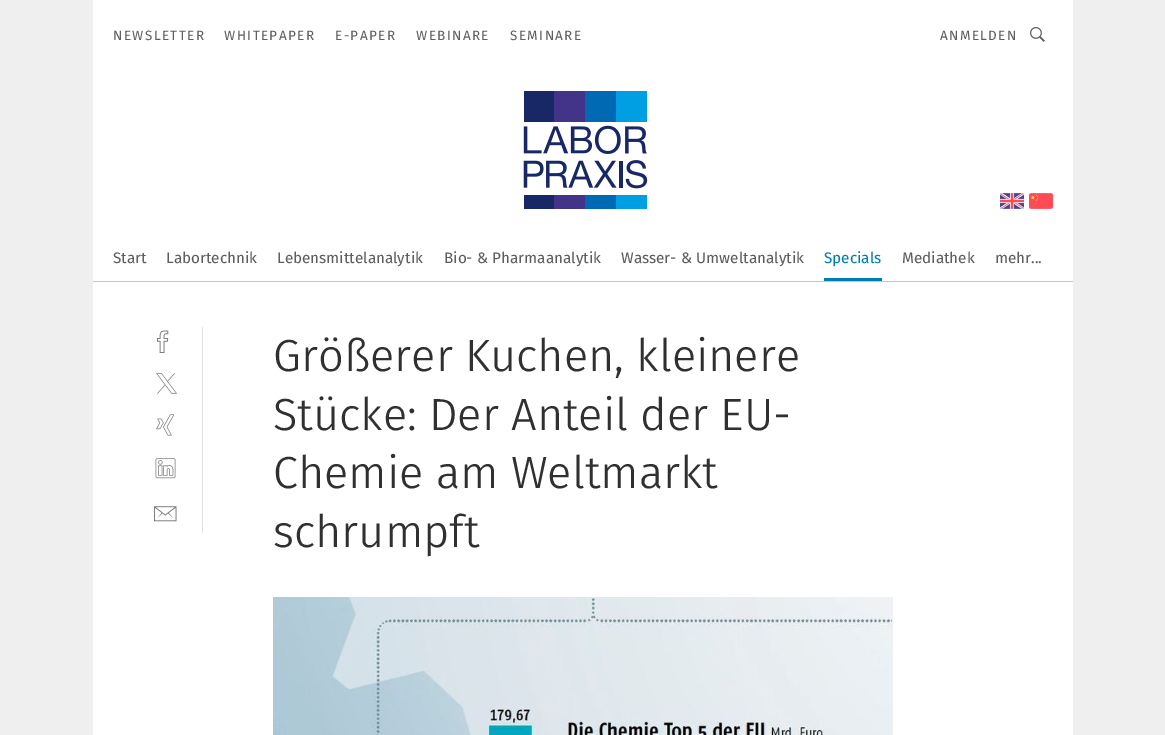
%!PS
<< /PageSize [1165 735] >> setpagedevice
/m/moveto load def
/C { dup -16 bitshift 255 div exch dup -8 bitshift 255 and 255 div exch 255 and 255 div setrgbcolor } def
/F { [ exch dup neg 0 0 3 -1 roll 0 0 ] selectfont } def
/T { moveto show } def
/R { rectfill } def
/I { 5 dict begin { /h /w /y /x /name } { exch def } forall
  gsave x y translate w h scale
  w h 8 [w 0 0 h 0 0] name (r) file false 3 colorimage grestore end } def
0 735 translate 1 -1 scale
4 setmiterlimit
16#EFEFEF C
0 0 1165 735 R
16#FFFFFF C
93 0 980 735 R
16#C6C6C6 C
93 281 980 1 R
/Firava-Regular 13.5 F
16#5E5E5E C
113 40 m 1.4 0 (NEWSLETTER) ashow
224 40 m 1.4 0 (WHITEPAPER) ashow
335 40 m 1.4 0 (E-PAPER) ashow
416 40 m 1.4 0 (WEBINARE) ashow
510 40 m 1.4 0 (SEMINARE) ashow
940 40 m 1.4 0 (ANMELDEN) ashow
(1.rgb) 1030 27 15 15 I
(2.rgb) 523 91 125 118 I
(3.rgb) 1000 193 24 16 I
(4.rgb) 1029 193 24 16 I
/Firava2-Regular 15.25 F
(Start) 113 263 T
(Labortechnik) 166 263 T
(Lebensmittelanalytik) 277 263 T
(Bio- & Pharmaanalytik) 444 263 T
(Wasser- & Umweltanalytik) 621 263 T
16#007EB4 C
824 278 58 3 R
(Specials) 824 263 T
16#5E5E5E C
(Mediathek) 902 263 T
(mehr...) 995 263 T
16#E2E2E2 C
202 327 1 206 R
(5.rgb) 157 330 12 23 I
(6.rgb) 156 373 21 21 I
(7.rgb) 156 414 19 22 I
(8.rgb) 155 458 21 21 I
(9.rgb) 154 506 23 16 I
/Firava-Light 45 F
16#303030 C
(Größerer Kuchen, kleinere) 273 371 T
(Stücke: Der Anteil der EU-) 273 430 T
(Chemie am Weltmarkt) 273 488 T
(schrumpft) 273 547 T
16#EFEFEF C
892 597 1 138 R
(10.rgb) 273 597 619 138 I
showpage
